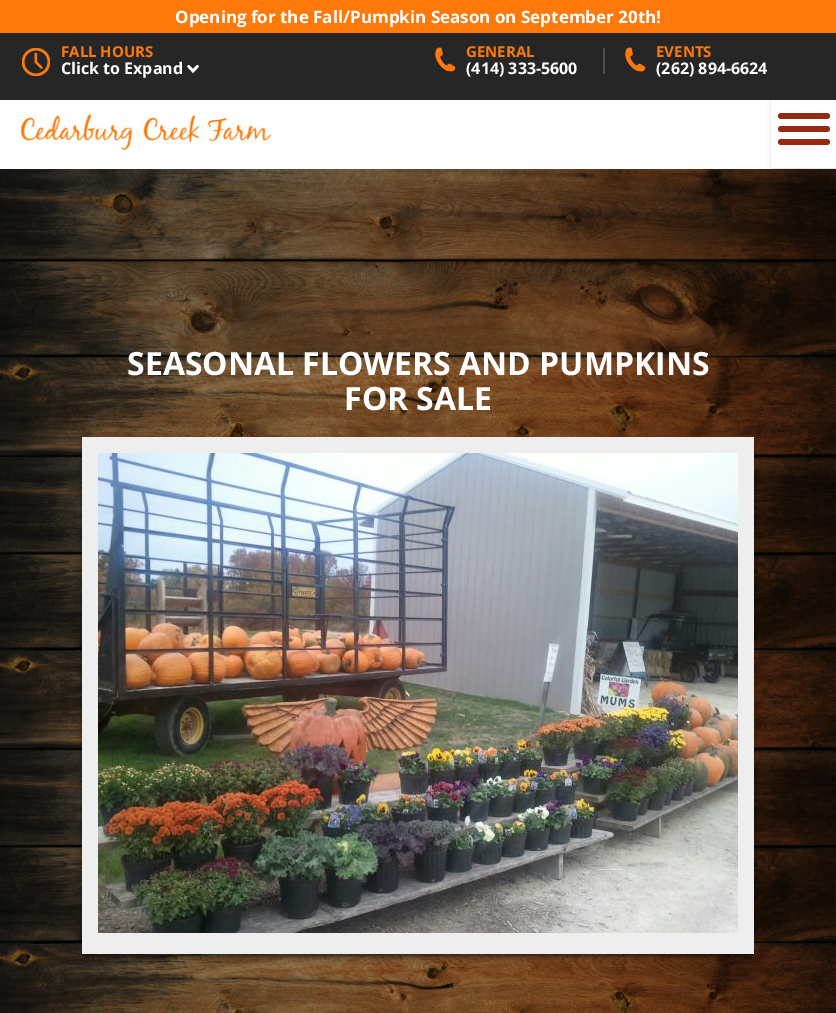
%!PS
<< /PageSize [836 1013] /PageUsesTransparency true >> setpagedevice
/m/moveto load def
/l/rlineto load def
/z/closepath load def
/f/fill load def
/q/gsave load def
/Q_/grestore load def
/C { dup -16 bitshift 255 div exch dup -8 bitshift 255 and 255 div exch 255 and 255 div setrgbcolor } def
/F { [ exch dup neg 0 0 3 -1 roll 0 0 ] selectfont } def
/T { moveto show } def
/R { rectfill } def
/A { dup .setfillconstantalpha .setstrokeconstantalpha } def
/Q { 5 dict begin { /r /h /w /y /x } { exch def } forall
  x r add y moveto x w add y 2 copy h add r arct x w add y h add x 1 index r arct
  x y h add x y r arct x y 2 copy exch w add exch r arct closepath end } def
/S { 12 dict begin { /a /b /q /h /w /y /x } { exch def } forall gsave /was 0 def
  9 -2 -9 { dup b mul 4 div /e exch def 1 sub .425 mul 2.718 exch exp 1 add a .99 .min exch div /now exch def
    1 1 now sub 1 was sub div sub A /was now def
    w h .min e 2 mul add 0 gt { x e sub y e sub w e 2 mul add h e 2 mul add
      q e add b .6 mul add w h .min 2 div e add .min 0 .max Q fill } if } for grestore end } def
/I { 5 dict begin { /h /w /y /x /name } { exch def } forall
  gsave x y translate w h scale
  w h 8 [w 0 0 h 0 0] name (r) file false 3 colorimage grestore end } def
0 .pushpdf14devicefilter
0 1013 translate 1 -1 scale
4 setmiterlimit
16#FFFFFF C
0 0 836 1013 R
(5.rgb) 0 169 836 844 I
q
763 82 m 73 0 l 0 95 l -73 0 l z 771 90 m 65 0 l 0 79 l -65 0 l z eoclip newpath
16#000000 C
772 91 63 77 0 2.5 .2 S
Q_
16#262626 C
0 33 836 67 R
16#FD790A C
0 0 836 33 R
/OpenSans-Bold 17 F
16#FFFFFF C
(Opening for the Fall/Pumpkin Season on September 20th!) 175 23 T
(1.rgb) 21 47 30 30 I
/OpenSans-Bold 15 F
16#FD790A C
(FALL HOURS) 61 57 T
/OpenSans-Bold 16 F
16#FFFFFF C
(Click to Expand) 61 74 T
(2.rgb) 187 65 12 9 I
(3.rgb) 435 47 21 25 I
/OpenSans-Bold 15 F
16#FD790A C
(GENERAL) 466 57 T
/OpenSans-Bold 16 F
16#FFFFFF C
(\(414\) 333-5600) 466 74 T
16#4E4E4E C
603 48 2 26 R
(3.rgb) 625 47 21 25 I
/OpenSans-Bold 15 F
16#FD790A C
(EVENTS) 656 57 T
/OpenSans-Bold 16 F
16#FFFFFF C
(\(262\) 894-6624) 656 74 T
(4.rgb) 20 113 251 37 I
16#E6E6E6 C
771 168 65 1 R
16#972913 C
778 113 52 6 3 Q f
778 126 52 6 3 Q f
778 139 52 6 3 Q f
/OpenSans-Bold 32 F
16#FFFFFF C
(SEASONAL FLOWERS AND PUMPKINS) 127 375 T
(FOR SALE) 344 410 T
16#000000 C
85 444 666 511 0 4 1 S
16#EEEEEE C
82 437 672 517 R
(6.rgb) 98 453 640 480 I
.poppdf14devicefilter showpage
